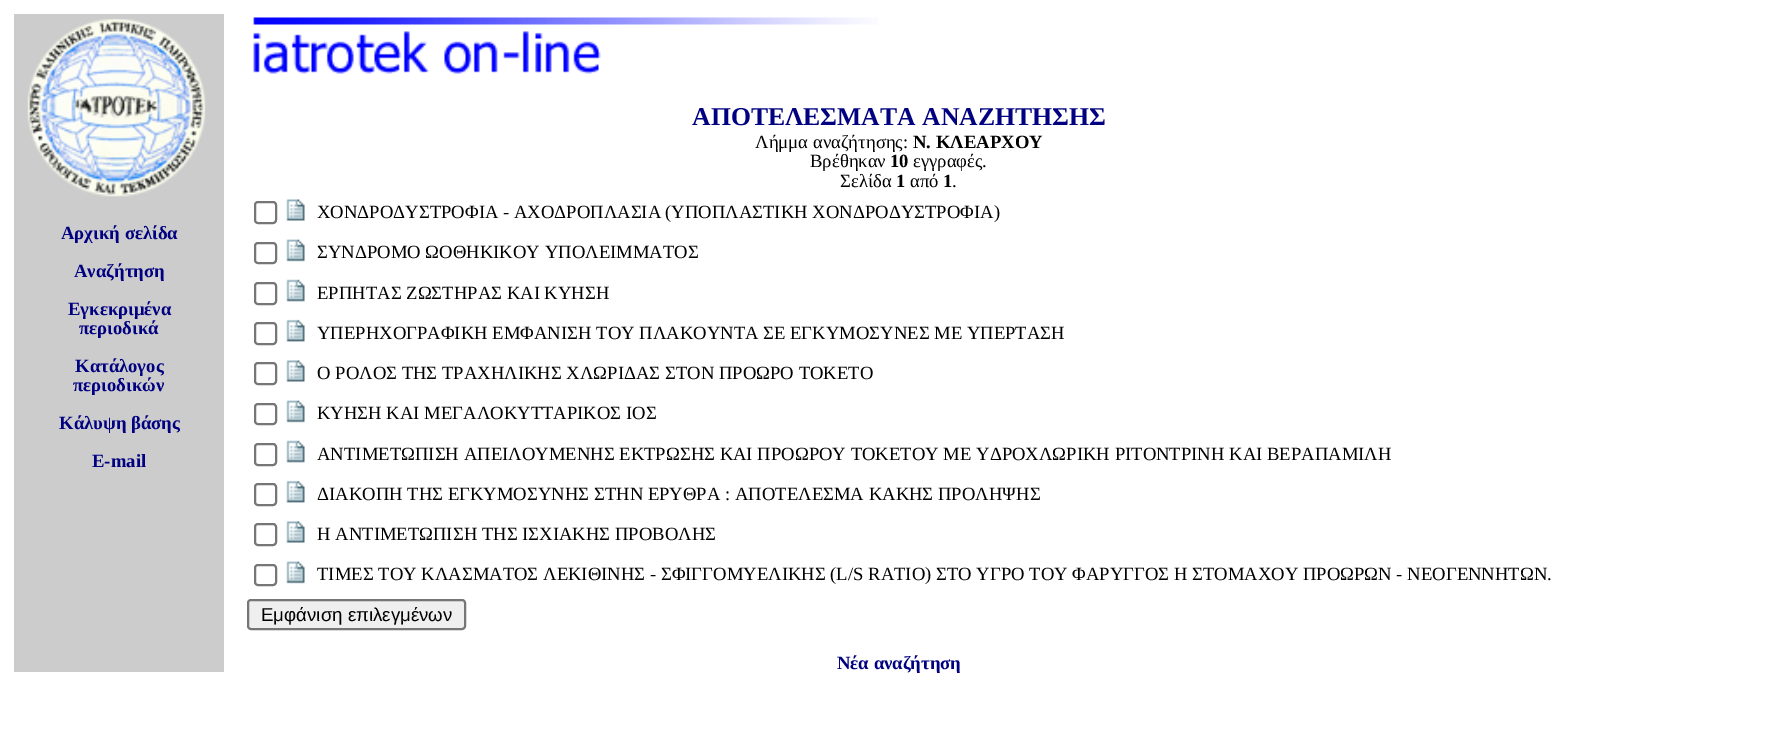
%!PS
<< /PageSize [1777 748] >> setpagedevice
/f/fill load def
/s/stroke load def
/q/gsave load def
/Q_/grestore load def
/w/setlinewidth load def
/C { dup -16 bitshift 255 div exch dup -8 bitshift 255 and 255 div exch 255 and 255 div setrgbcolor } def
/F { [ exch dup neg 0 0 3 -1 roll 0 0 ] selectfont } def
/T { moveto show } def
/R { rectfill } def
/Q { 5 dict begin { /r /h /w /y /x } { exch def } forall
  x r add y moveto x w add y 2 copy h add r arct x w add y h add x 1 index r arct
  x y h add x y r arct x y 2 copy exch w add exch r arct closepath end } def
/I { 5 dict begin { /h /w /y /x /name } { exch def } forall
  gsave x y translate w h scale
  w h 8 [w 0 0 h 0 0] name (r) file false 3 colorimage grestore end } def
0 748 translate 1 -1 scale
4 setmiterlimit
16#FFFFFF C
0 0 1777 748 R
16#CCCCCC C
14 14 210 658 R
(1.rgb) 253 17 625 57 I
/LiberationSerif-Bold 25.7 F
16#000080 C
(ΑΠΟΤΕΛΕΣΜΑΤΑ ΑΝΑΖΗΤΗΣΗΣ) 692 125 T
/LiberationSerif-Regular 18.67 F
16#000000 C
(Λήμμα αναζήτησης:) 755 148 T
/LiberationSerif-Bold 18.67 F
(Ν. ΚΛΕΑΡΧΟΥ) 913 148 T
/LiberationSerif-Regular 18.67 F
(Βρέθηκαν) 810 167 T
/LiberationSerif-Bold 18.67 F
(10) 890 167 T
/LiberationSerif-Regular 18.67 F
(εγγραφές.) 913 167 T
(Σελίδα) 840 187 T
/LiberationSerif-Bold 18.67 F
(1) 896 187 T
/LiberationSerif-Regular 18.67 F
(από) 910 187 T
/LiberationSerif-Bold 18.67 F
(1) 943 187 T
/LiberationSerif-Regular 18.67 F
(.) 952 187 T
16#767676 C
2 w
255 202 21 21 3 Q s
(2.rgb) 286 199 19 22 I
16#000000 C
(ΧΟΝΔΡΟΔΥΣΤΡΟΦΙΑ - ΑΧΟΔΡΟΠΛΑΣΙΑ) 317 218 T
(\(ΥΠΟΠΛΑΣΤΙΚΗ ΧΟΝΔΡΟΔΥΣΤΡΟΦΙΑ\)) 665 218 T
16#767676 C
255 243 21 20 3 Q s
(3.rgb) 286 239 19 23 I
16#000000 C
(ΣΥΝΔΡΟΜΟ ΩΟΘΗΚΙΚΟΥ ΥΠΟΛΕΙΜΜΑΤΟΣ) 317 258 T
16#767676 C
255 283 21 21 3 Q s
(4.rgb) 286 279 19 23 I
16#000000 C
(ΕΡΠΗΤΑΣ ΖΩΣΤΗΡΑΣ ΚΑΙ ΚΥΗΣΗ) 317 299 T
16#767676 C
255 323 21 21 3 Q s
(5.rgb) 286 319 19 23 I
16#000000 C
(ΥΠΕΡΗΧΟΓΡΑΦΙΚΗ ΕΜΦΑΝΙΣΗ ΤΟΥ ΠΛΑΚΟΥΝΤΑ ΣΕ ΕΓΚΥΜΟΣΥΝΕΣ ΜΕ ΥΠΕΡΤΑΣΗ) 317 339 T
16#767676 C
255 363 21 21 3 Q s
(2.rgb) 286 360 19 22 I
16#000000 C
(Ο ΡΟΛΟΣ ΤΗΣ ΤΡΑΧΗΛΙΚΗΣ ΧΛΩΡΙΔΑΣ ΣΤΟΝ ΠΡΟΩΡΟ ΤΟΚΕΤΟ) 317 379 T
16#767676 C
255 404 21 20 3 Q s
(3.rgb) 286 400 19 23 I
16#000000 C
(ΚΥΗΣΗ ΚΑΙ ΜΕΓΑΛΟΚΥΤΤΑΡΙΚΟΣ ΙΟΣ) 317 419 T
16#767676 C
255 444 21 21 3 Q s
(4.rgb) 286 440 19 23 I
16#000000 C
(ΑΝΤΙΜΕΤΩΠΙΣΗ ΑΠΕΙΛΟΥΜΕΝΗΣ ΕΚΤΡΩΣΗΣ ΚΑΙ ΠΡΟΩΡΟΥ ΤΟΚΕΤΟΥ ΜΕ ΥΔΡΟΧΛΩΡΙΚΗ ΡΙΤΟΝΤΡΙΝΗ ΚΑΙ ΒΕΡΑΠΑΜΙΛΗ) 317 460 T
16#767676 C
255 484 21 21 3 Q s
(5.rgb) 286 480 19 23 I
16#000000 C
(ΔΙΑΚΟΠΗ ΤΗΣ ΕΓΚΥΜΟΣΥΝΗΣ ΣΤΗΝ ΕΡΥΘΡΑ : ΑΠΟΤΕΛΕΣΜΑ ΚΑΚΗΣ ΠΡΟΛΗΨΗΣ) 317 500 T
16#767676 C
255 524 21 21 3 Q s
(2.rgb) 286 521 19 22 I
16#000000 C
(Η ΑΝΤΙΜΕΤΩΠΙΣΗ ΤΗΣ ΙΣΧΙΑΚΗΣ ΠΡΟΒΟΛΗΣ) 317 540 T
16#767676 C
255 565 21 20 3 Q s
(3.rgb) 286 561 19 23 I
16#000000 C
(ΤΙΜΕΣ ΤΟΥ ΚΛΑΣΜΑΤΟΣ ΛΕΚΙΘΙΝΗΣ - ΣΦΙΓΓΟΜΥΕΛΙΚΗΣ \(L/S RATIO\) ΣΤΟ ΥΓΡΟ ΤΟΥ ΦΑΡΥΓΓΟΣ Η ΣΤΟΜΑΧΟΥ ΠΡΟΩΡΩΝ - ΝΕΟΓΕΝΝΗΤΩΝ.) 317 580 T
16#EFEFEF C
248 600 217 29 3 Q q f Q_
16#767676 C
s
/LiberationSans-Regular 18.67 F
16#000000 C
(Εμφάνιση επιλεγμένων) 261 621 T
/LiberationSerif-Bold 18.67 F
16#000080 C
(Νέα αναζήτηση) 837 669 T
(6.rgb) 27 19 179 178 I
(Αρχική σελίδα) 61 239 T
(Αναζήτηση) 74 277 T
(Εγκεκριμένα) 68 315 T
(περιοδικά) 79 334 T
(Κατάλογος) 75 372 T
(περιοδικών) 73 391 T
(Κάλυψη βάσης) 59 429 T
(E-mail) 92 467 T
showpage
